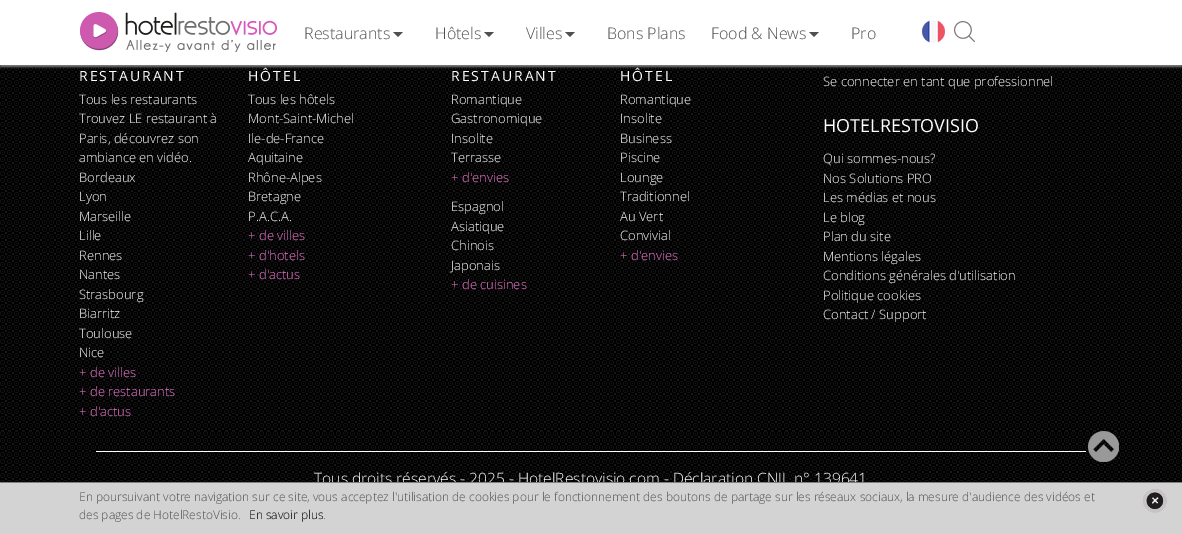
%!PS
<< /PageSize [1182 534] /PageUsesTransparency true >> setpagedevice
/m/moveto load def
/l/rlineto load def
/z/closepath load def
/f/fill load def
/C { dup -16 bitshift 255 div exch dup -8 bitshift 255 and 255 div exch 255 and 255 div setrgbcolor } def
/F { [ exch dup neg 0 0 3 -1 roll 0 0 ] selectfont } def
/T { moveto show } def
/R { rectfill } def
/A { dup .setfillconstantalpha .setstrokeconstantalpha } def
/Q { 5 dict begin { /r /h /w /y /x } { exch def } forall
  x r add y moveto x w add y 2 copy h add r arct x w add y h add x 1 index r arct
  x y h add x y r arct x y 2 copy exch w add exch r arct closepath end } def
/S { 12 dict begin { /a /b /q /h /w /y /x } { exch def } forall gsave /was 0 def
  9 -2 -9 { dup b mul 4 div /e exch def 1 sub .425 mul 2.718 exch exp 1 add a .99 .min exch div /now exch def
    1 1 now sub 1 was sub div sub A /was now def
    w h .min e 2 mul add 0 gt { x e sub y e sub w e 2 mul add h e 2 mul add
      q e add b .6 mul add w h .min 2 div e add .min 0 .max Q fill } if } for grestore end } def
/I { 5 dict begin { /h /w /y /x /name } { exch def } forall
  gsave x y translate w h scale
  w h 8 [w 0 0 h 0 0] name (r) file false 3 colorimage grestore end } def
0 .pushpdf14devicefilter
0 534 translate 1 -1 scale
4 setmiterlimit
16#FFFFFF C
0 0 1182 534 R
(4.rgb) 0 65 1182 366 I
16#808080 C
0 2 1182 65 0 1 1 S
16#FFFFFF C
0 0 1182 65 R
(1.rgb) 80 12 197 40 I
/OpenSans-Light 16 F
16#505050 C
(Restaurants) 304 39 T
393 32 m 10 0 l -5 5 l z f
(Hôtels) 435 39 T
484 32 m 10 0 l -5 5 l z f
(Villes) 526 39 T
565 32 m 10 0 l -5 5 l z f
(Bons Plans) 607 39 T
(Food & News) 711 39 T
809 32 m 10 0 l -5 5 l z f
(Pro) 851 39 T
(2.rgb) 922 20 23 23 I
(3.rgb) 954 21 21 21 I
/OpenSans-Regular 14 F
16#FFFFFF C
79 81 m 2 0 (RESTAURANT) ashow
/OpenSans-Light 13 F
(Tous les restaurants) 79 104 T
(Trouvez LE restaurant à) 79 123 T
(Paris, découvrez son) 79 143 T
(ambiance en vidéo.) 79 162 T
(Bordeaux) 79 182 T
(Lyon) 79 201 T
(Marseille) 79 221 T
(Lille) 79 240 T
(Rennes) 79 260 T
(Nantes) 79 279 T
(Strasbourg) 79 299 T
(Biarritz) 79 318 T
(Toulouse) 79 338 T
(Nice) 79 357 T
16#F279D3 C
(+ de villes) 79 377 T
(+ de restaurants) 79 396 T
(+ d'actus) 79 416 T
/OpenSans-Regular 14 F
16#FFFFFF C
248 81 m 2 0 (HÔTEL) ashow
/OpenSans-Light 13 F
(Tous les hôtels) 248 104 T
(Mont-Saint-Michel) 248 123 T
(Ile-de-France) 248 143 T
(Aquitaine) 248 162 T
(Rhône-Alpes) 248 182 T
(Bretagne) 248 201 T
(P.A.C.A.) 248 221 T
16#F279D3 C
(+ de villes) 248 240 T
(+ d'hotels) 248 260 T
(+ d'actus) 248 279 T
/OpenSans-Regular 14 F
16#FFFFFF C
451 81 m 2 0 (RESTAURANT) ashow
/OpenSans-Light 13 F
(Romantique) 451 104 T
(Gastronomique) 451 123 T
(Insolite) 451 143 T
(Terrasse) 451 162 T
16#F279D3 C
(+ d'envies) 451 182 T
16#FFFFFF C
(Espagnol) 451 211 T
(Asiatique) 451 231 T
(Chinois) 451 250 T
(Japonais) 451 270 T
16#F279D3 C
(+ de cuisines) 451 289 T
/OpenSans-Regular 14 F
16#FFFFFF C
620 81 m 2 0 (HÔTEL) ashow
/OpenSans-Light 13 F
(Romantique) 620 104 T
(Insolite) 620 123 T
(Business) 620 143 T
(Piscine) 620 162 T
(Lounge) 620 182 T
(Traditionnel) 620 201 T
(Au Vert) 620 221 T
(Convivial) 620 240 T
16#F279D3 C
(+ d'envies) 620 260 T
16#FFFFFF C
(Se connecter en tant que professionnel) 823 86 T
/OpenSans-Regular 18 F
(HOTELRESTOVISIO) 823 132 T
/OpenSans-Light 13 F
(Qui sommes-nous?) 823 163 T
(Nos Solutions PRO) 823 183 T
(Les médias et nous) 823 202 T
(Le blog) 823 222 T
(Plan du site) 823 241 T
(Mentions légales) 823 261 T
(Conditions générales d'utilisation) 823 280 T
(Politique cookies) 823 300 T
(Contact / Support) 823 319 T
(5.rgb) 0 431 1182 51 I
96 451 990 1 R
/OpenSans-Light 15.6 F
(Tous droits réservés - 2025 - HotelRestovisio.com - Déclaration CNIL n° 139641) 314 484 T
(6.rgb) 1088 431 31 31 I
16#D3D3D3 C
0 483 1182 51 R
16#808080 C
0 482 1182 1 R
/OpenSans-Light 12 F
16#505050 C
(En poursuivant votre navigation sur ce site, vous acceptez l'utilisation de cookies pour le fonctionnement des boutons de partage sur les réseaux sociaux, la mesure d'audience des vidéos et) 79 501 T
(des pages de HotelRestoVisio.) 79 519 T
16#000000 C
(En savoir plus) 249 519 T
16#505050 C
(.) 323 519 T
(7.rgb) 1143 489 24 24 I
.poppdf14devicefilter showpage
